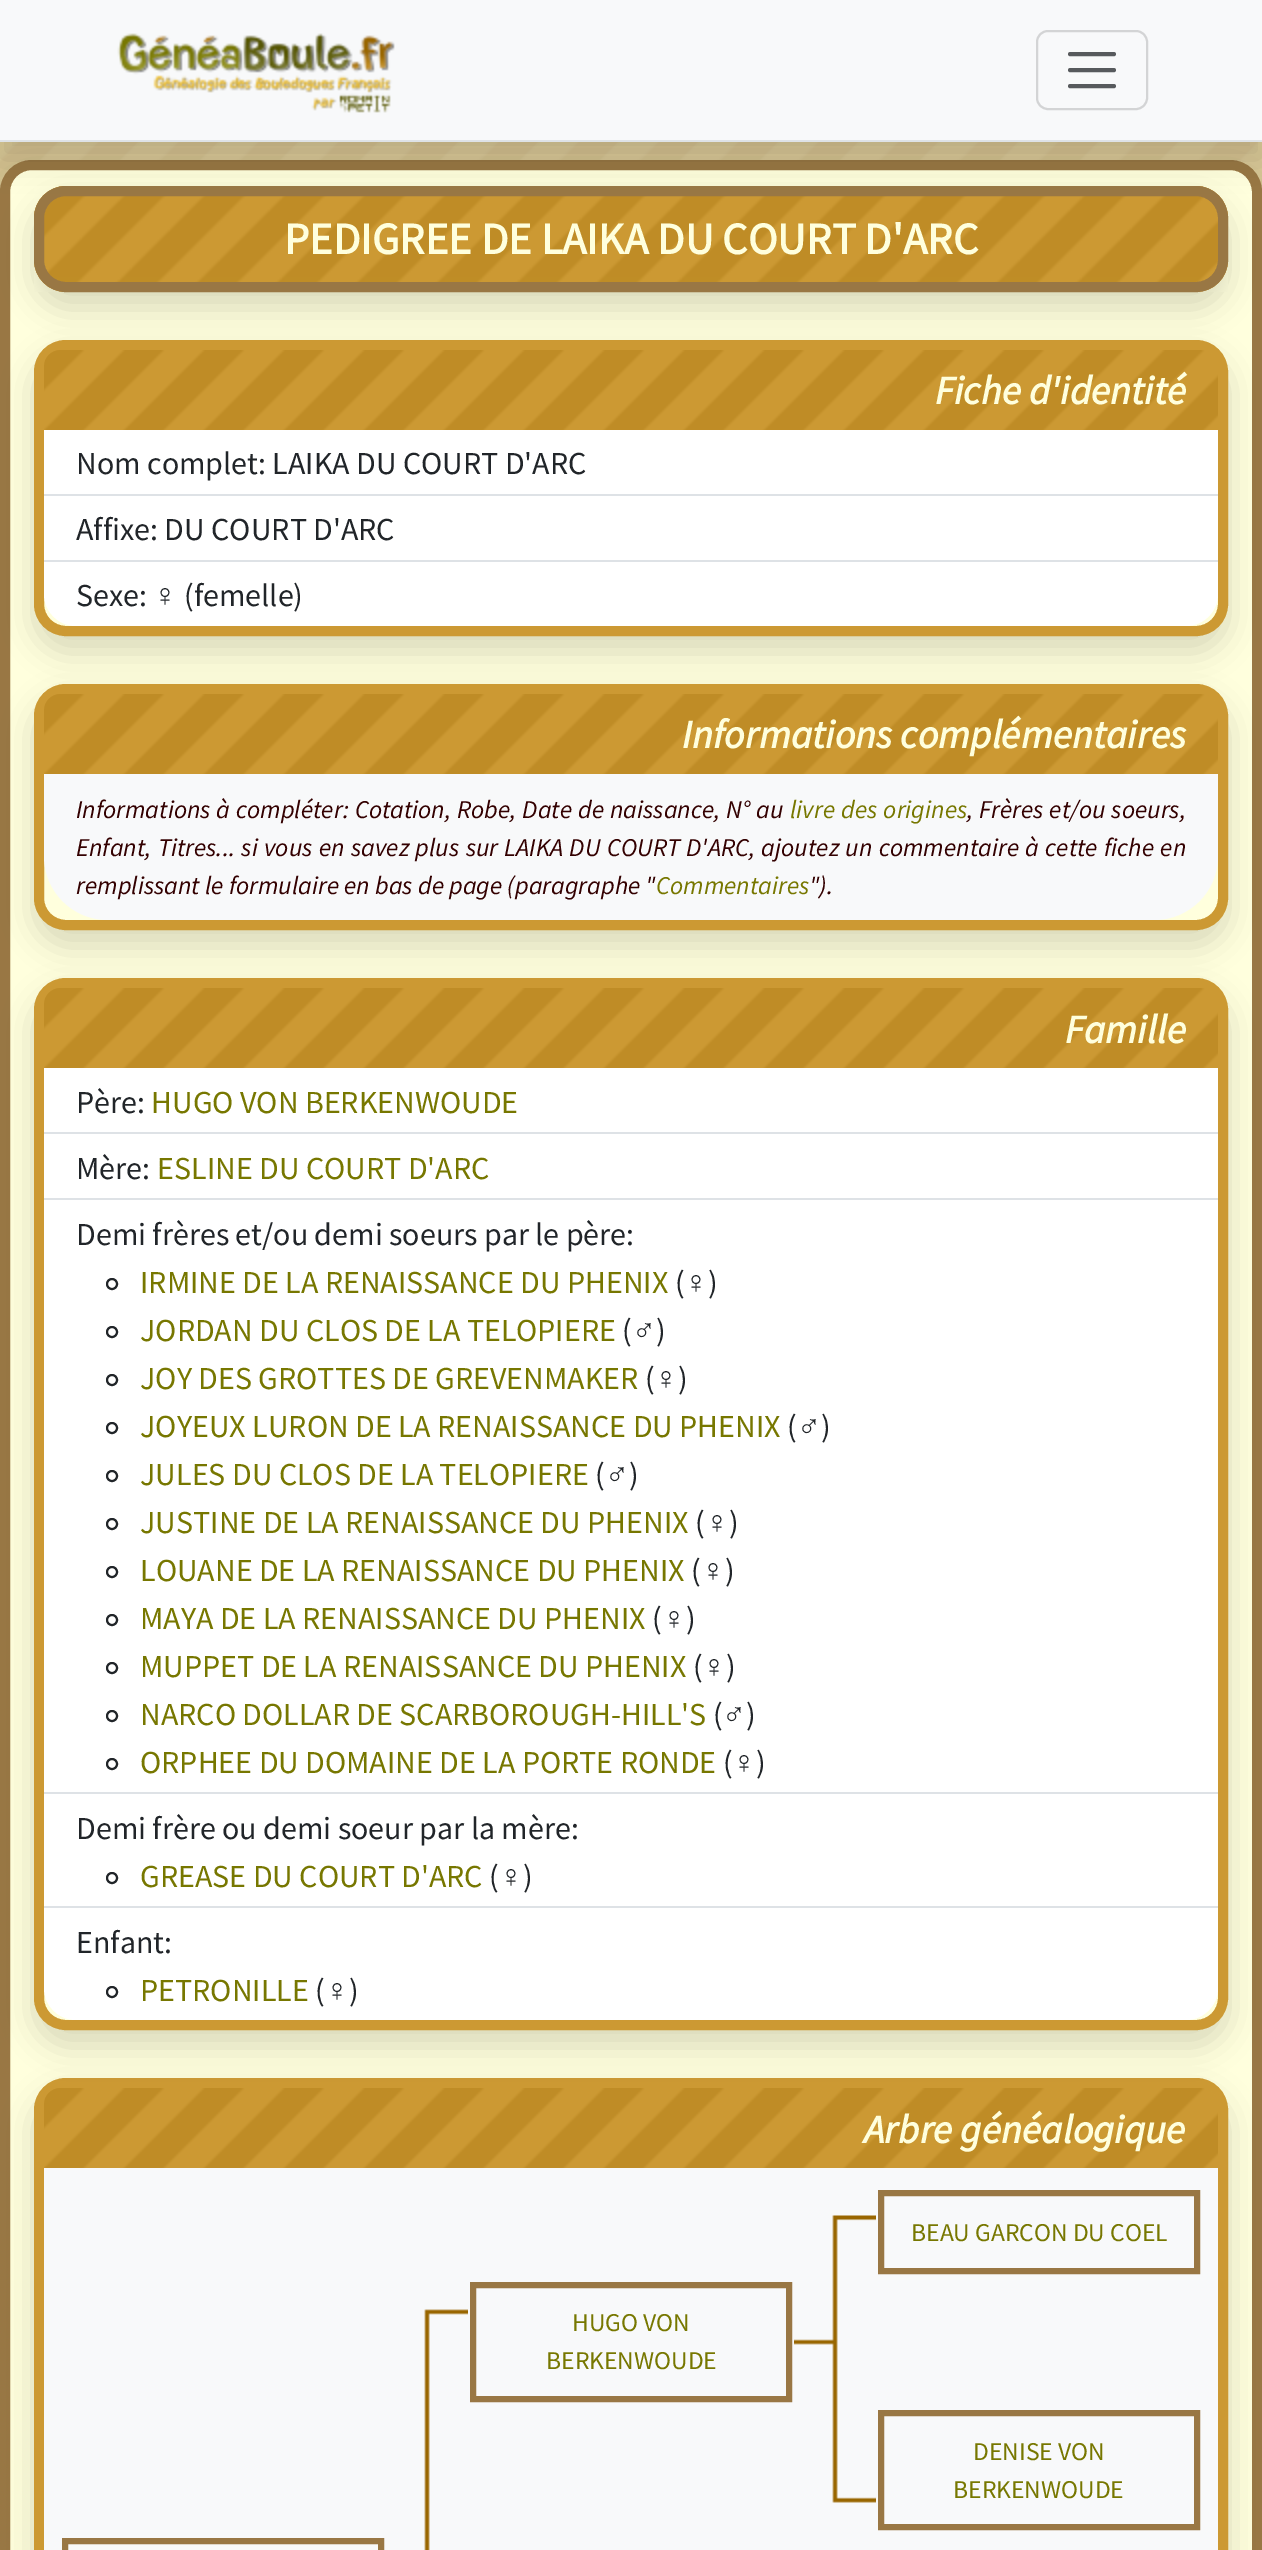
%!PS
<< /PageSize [1262 2550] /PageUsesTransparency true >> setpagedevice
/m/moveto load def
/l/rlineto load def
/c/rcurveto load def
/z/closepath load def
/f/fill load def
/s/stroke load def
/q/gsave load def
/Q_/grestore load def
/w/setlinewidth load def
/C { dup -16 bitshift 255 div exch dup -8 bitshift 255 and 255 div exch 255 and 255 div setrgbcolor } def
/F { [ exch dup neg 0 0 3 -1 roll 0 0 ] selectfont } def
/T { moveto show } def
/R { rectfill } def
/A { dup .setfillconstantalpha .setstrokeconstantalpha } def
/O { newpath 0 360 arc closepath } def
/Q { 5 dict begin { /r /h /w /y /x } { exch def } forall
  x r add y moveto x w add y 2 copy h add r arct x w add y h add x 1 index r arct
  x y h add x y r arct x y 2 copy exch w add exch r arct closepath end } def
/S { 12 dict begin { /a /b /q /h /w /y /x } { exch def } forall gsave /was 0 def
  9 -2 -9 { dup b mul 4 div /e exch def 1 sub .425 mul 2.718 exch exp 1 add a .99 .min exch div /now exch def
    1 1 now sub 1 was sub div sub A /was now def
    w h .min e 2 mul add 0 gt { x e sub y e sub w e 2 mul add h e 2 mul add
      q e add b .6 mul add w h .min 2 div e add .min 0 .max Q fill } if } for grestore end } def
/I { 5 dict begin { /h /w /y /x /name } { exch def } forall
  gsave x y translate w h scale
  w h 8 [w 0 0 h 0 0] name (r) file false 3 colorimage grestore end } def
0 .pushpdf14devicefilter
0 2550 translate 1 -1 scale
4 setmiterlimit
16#FFFFFF C
0 0 1262 2550 R
(1.rgb) 0 142 1262 18 I
(2.rgb) 0 160 1262 32 I
16#000000 C
0 176 1262 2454 32 16 .15 S
16#FFFFDD C
5 165 1252 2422 27 Q q f Q_
16#997744 C
10 w
s
16#000000 C
34 202 1194 106 32 16 .15 S
(4.rgb) 34 186 1194 106 I
16#997744 C
39 191 1184 96 27 Q s
16#000000 C
0 16 1262 142 0 16 .15 S
16#F8F9FA C
0 0 1262 140 R
16#DEE2E6 C
0 140 1262 2 R
(3.rgb) 117 33 278 80 I
16#D3D4D5 C
2 w
1037 31 110 78 11 Q s
16#575A5D C
4 w
1 setlinecap
1070 54 m 44 0 l 1070 70 m 44 0 l 1070 86 m 44 0 l s
/SourceSansPro-Bold 44.6 F
16#FFFFDD C
(PEDIGREE DE LAIKA DU COURT D'ARC) 284 254 T
q
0 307 m 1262 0 l 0 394 l -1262 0 l z 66 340 m 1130 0 l 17.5 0 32 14.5 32 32 c 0 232 l 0 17.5 -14.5 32 -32 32 c -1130 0 l -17.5 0 -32 -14.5 -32 -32 c 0 -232 l 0 -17.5 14.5 -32 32 -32 c z eoclip newpath
16#000000 C
34 356 1194 296 32 16 .15 S
Q_
16#CC9933 C
10 w
0 setlinecap
39 345 1184 286 27 Q s
60 350 m 1142 0 l 9 0 16 7 16 16 c 0 64 l -1174 0 l 0 -64 l 0 -9 7 -16 16 -16 c z f
(5.rgb) 44 350 1174 80 I
/SourceSansPro-BoldItalic 40 F
16#FFFFDD C
(Fiche d'identité) 935 404 T
16#FFFFFF C
44 430 1174 64 R
16#DEE2E6 C
44 494 1174 2 R
/SourceSansPro-Regular 32 F
16#212529 C
(Nom complet: LAIKA DU COURT D'ARC) 76 474 T
16#FFFFFF C
44 496 1174 64 R
16#DEE2E6 C
44 560 1174 2 R
16#212529 C
(Affixe: DU COURT D'ARC) 76 540 T
16#FFFFFF C
44 562 m 1174 0 l 0 32 l 0 17.5 -14.5 32 -32 32 c -1110 0 l -17.5 0 -32 -14.5 -32 -32 c z f
16#212529 C
(Sexe:) 76 606 T
/LiberationSans-Regular 32 F
(♀) 153 606 T
/SourceSansPro-Regular 32 F
(\(femelle\)) 184 606 T
q
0 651 m 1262 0 l 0 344 l -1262 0 l z 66 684 m 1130 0 l 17.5 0 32 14.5 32 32 c 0 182 l 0 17.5 -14.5 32 -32 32 c -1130 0 l -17.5 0 -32 -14.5 -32 -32 c 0 -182 l 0 -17.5 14.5 -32 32 -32 c z eoclip newpath
16#000000 C
34 700 1194 246 32 16 .15 S
Q_
16#CC9933 C
39 689 1184 236 27 Q s
60 694 m 1142 0 l 9 0 16 7 16 16 c 0 64 l -1174 0 l 0 -64 l 0 -9 7 -16 16 -16 c z f
(5.rgb) 44 694 1174 80 I
/SourceSansPro-BoldItalic 40 F
16#FFFFDD C
(Informations complémentaires) 682 748 T
16#F8F9FA C
44 774 m 1174 0 l 0 82 l 0 35.5 -28.5 64 -64 64 c -1046 0 l -35.5 0 -64 -28.5 -64 -64 c z f
/SourceSansPro-Italic 25.6 F
16#330000 C
76 818 m .75 0 32 (Informations à compléter: Cotation, Robe, Date de naissance, N° au) widthshow
16#777700 C
790 818 m 1 0 32 (livre des origines) widthshow
16#330000 C
967 818 m .75 0 32 (, Frères et/ou soeurs,) widthshow
76 856 m 1.2 0 32 (Enfant, Titres... si vous en savez plus sur LAIKA DU COURT D'ARC, ajoutez un commentaire à cette fiche en) widthshow
(remplissant le formulaire en bas de page \(paragraphe ") 76 894 T
16#777700 C
(Commentaires) 656 894 T
16#330000 C
("\).) 809 894 T
16#000000 C
34 2094 1194 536 32 16 .15 S
16#CC9933 C
39 2083 1184 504 27 Q s
60 2088 m 1142 0 l 9 0 16 7 16 16 c 0 64 l -1174 0 l 0 -64 l 0 -9 7 -16 16 -16 c z f
(5.rgb) 44 2088 1174 80 I
q
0 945 m 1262 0 l 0 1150 l -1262 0 l z 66 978 m 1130 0 l 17.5 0 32 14.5 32 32 c 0 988 l 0 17.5 -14.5 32 -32 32 c -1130 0 l -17.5 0 -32 -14.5 -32 -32 c 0 -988 l 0 -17.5 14.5 -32 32 -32 c z eoclip newpath
16#000000 C
34 994 1194 1052 32 16 .15 S
Q_
39 983 1184 1042 27 Q s
60 988 m 1142 0 l 9 0 16 7 16 16 c 0 64 l -1174 0 l 0 -64 l 0 -9 7 -16 16 -16 c z f
(5.rgb) 44 988 1174 80 I
/SourceSansPro-BoldItalic 40 F
16#FFFFDD C
(Famille) 1065 1043 T
16#FFFFFF C
44 1068 1174 64 R
16#DEE2E6 C
44 1132 1174 2 R
/SourceSansPro-Regular 32 F
16#212529 C
(Père:) 76 1113 T
16#777700 C
(HUGO VON BERKENWOUDE) 151 1113 T
16#FFFFFF C
44 1134 1174 64 R
16#DEE2E6 C
44 1198 1174 2 R
16#212529 C
(Mère:) 76 1179 T
16#777700 C
(ESLINE DU COURT D'ARC) 157 1179 T
16#FFFFFF C
44 1200 1174 592 R
16#DEE2E6 C
44 1792 1174 2 R
16#212529 C
(Demi frères et/ou demi soeurs par le père:) 76 1245 T
2 w
112 1284 5 O s
16#777700 C
(IRMINE DE LA RENAISSANCE DU PHENIX) 140 1293 T
16#212529 C
(\() 675 1293 T
/LiberationSans-Regular 32 F
(♀) 684 1293 T
/SourceSansPro-Regular 32 F
(\)) 708 1293 T
112 1332 5 O s
16#777700 C
(JORDAN DU CLOS DE LA TELOPIERE) 140 1341 T
16#212529 C
(\() 622 1341 T
/LiberationSans-Regular 32 F
(♂) 632 1341 T
/SourceSansPro-Regular 32 F
(\)) 656 1341 T
112 1380 5 O s
16#777700 C
(JOY DES GROTTES DE GREVENMAKER) 140 1389 T
16#212529 C
(\() 645 1389 T
/LiberationSans-Regular 32 F
(♀) 654 1389 T
/SourceSansPro-Regular 32 F
(\)) 678 1389 T
112 1428 5 O s
16#777700 C
(JOYEUX LURON DE LA RENAISSANCE DU PHENIX) 140 1437 T
16#212529 C
(\() 787 1437 T
/LiberationSans-Regular 32 F
(♂) 797 1437 T
/SourceSansPro-Regular 32 F
(\)) 821 1437 T
112 1476 5 O s
16#777700 C
(JULES DU CLOS DE LA TELOPIERE) 140 1485 T
16#212529 C
(\() 595 1485 T
/LiberationSans-Regular 32 F
(♂) 605 1485 T
/SourceSansPro-Regular 32 F
(\)) 629 1485 T
112 1524 5 O s
16#777700 C
(JUSTINE DE LA RENAISSANCE DU PHENIX) 140 1533 T
16#212529 C
(\() 695 1533 T
/LiberationSans-Regular 32 F
(♀) 705 1533 T
/SourceSansPro-Regular 32 F
(\)) 729 1533 T
112 1572 5 O s
16#777700 C
(LOUANE DE LA RENAISSANCE DU PHENIX) 140 1581 T
16#212529 C
(\() 691 1581 T
/LiberationSans-Regular 32 F
(♀) 701 1581 T
/SourceSansPro-Regular 32 F
(\)) 725 1581 T
112 1620 5 O s
16#777700 C
(MAYA DE LA RENAISSANCE DU PHENIX) 140 1629 T
16#212529 C
(\() 652 1629 T
/LiberationSans-Regular 32 F
(♀) 662 1629 T
/SourceSansPro-Regular 32 F
(\)) 686 1629 T
112 1668 5 O s
16#777700 C
(MUPPET DE LA RENAISSANCE DU PHENIX) 140 1677 T
16#212529 C
(\() 693 1677 T
/LiberationSans-Regular 32 F
(♀) 702 1677 T
/SourceSansPro-Regular 32 F
(\)) 726 1677 T
112 1716 5 O s
16#777700 C
(NARCO DOLLAR DE SCARBOROUGH-HILL'S) 140 1725 T
16#212529 C
(\() 713 1725 T
/LiberationSans-Regular 32 F
(♂) 722 1725 T
/SourceSansPro-Regular 32 F
(\)) 746 1725 T
112 1764 5 O s
16#777700 C
(ORPHEE DU DOMAINE DE LA PORTE RONDE) 140 1773 T
16#212529 C
(\() 723 1773 T
/LiberationSans-Regular 32 F
(♀) 732 1773 T
/SourceSansPro-Regular 32 F
(\)) 756 1773 T
16#FFFFFF C
44 1794 1174 112 R
16#DEE2E6 C
44 1906 1174 2 R
16#212529 C
(Demi frère ou demi soeur par la mère:) 76 1839 T
112 1878 5 O s
16#777700 C
(GREASE DU COURT D'ARC) 140 1887 T
16#212529 C
(\() 489 1887 T
/LiberationSans-Regular 32 F
(♀) 499 1887 T
/SourceSansPro-Regular 32 F
(\)) 523 1887 T
16#FFFFFF C
44 1908 m 1174 0 l 0 80 l 0 17.5 -14.5 32 -32 32 c -1110 0 l -17.5 0 -32 -14.5 -32 -32 c z f
16#212529 C
(Enfant:) 76 1953 T
112 1992 5 O s
16#777700 C
(PETRONILLE) 140 2001 T
16#212529 C
(\() 315 2001 T
/LiberationSans-Regular 32 F
(♀) 325 2001 T
/SourceSansPro-Regular 32 F
(\)) 349 2001 T
/SourceSansPro-BoldItalic 40 F
16#FFFFDD C
(Arbre généalogique) 864 2143 T
16#F8F9FA C
44 2168 1174 382 R
(6.rgb) 832 2215 44 61 I
16#997744 C
6 w
881 2193 316 78 rectstroke
/SourceSansPro-Regular 25.6 F
16#777700 C
(BEAU GARCON DU COEL) 911 2241 T
(7.rgb) 832 2276 6 4 I
(8.rgb) 424 2309 44 95 I
16#997744 C
473 2285 316 114 rectstroke
16#777700 C
(HUGO VON) 572 2331 T
(BERKENWOUDE) 546 2369 T
(9.rgb) 794 2280 44 124 I
(7.rgb) 424 2404 6 4 I
(7.rgb) 832 2404 6 4 I
(10.rgb) 424 2408 6 124 I
(11.rgb) 832 2408 44 95 I
16#997744 C
881 2413 316 114 rectstroke
16#777700 C
(DENISE VON) 973 2460 T
(BERKENWOUDE) 953 2498 T
(7.rgb) 424 2532 6 4 I
16#997744 C
65 2541 316 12 rectstroke
(12.rgb) 424 2536 6 14 I
.poppdf14devicefilter showpage
